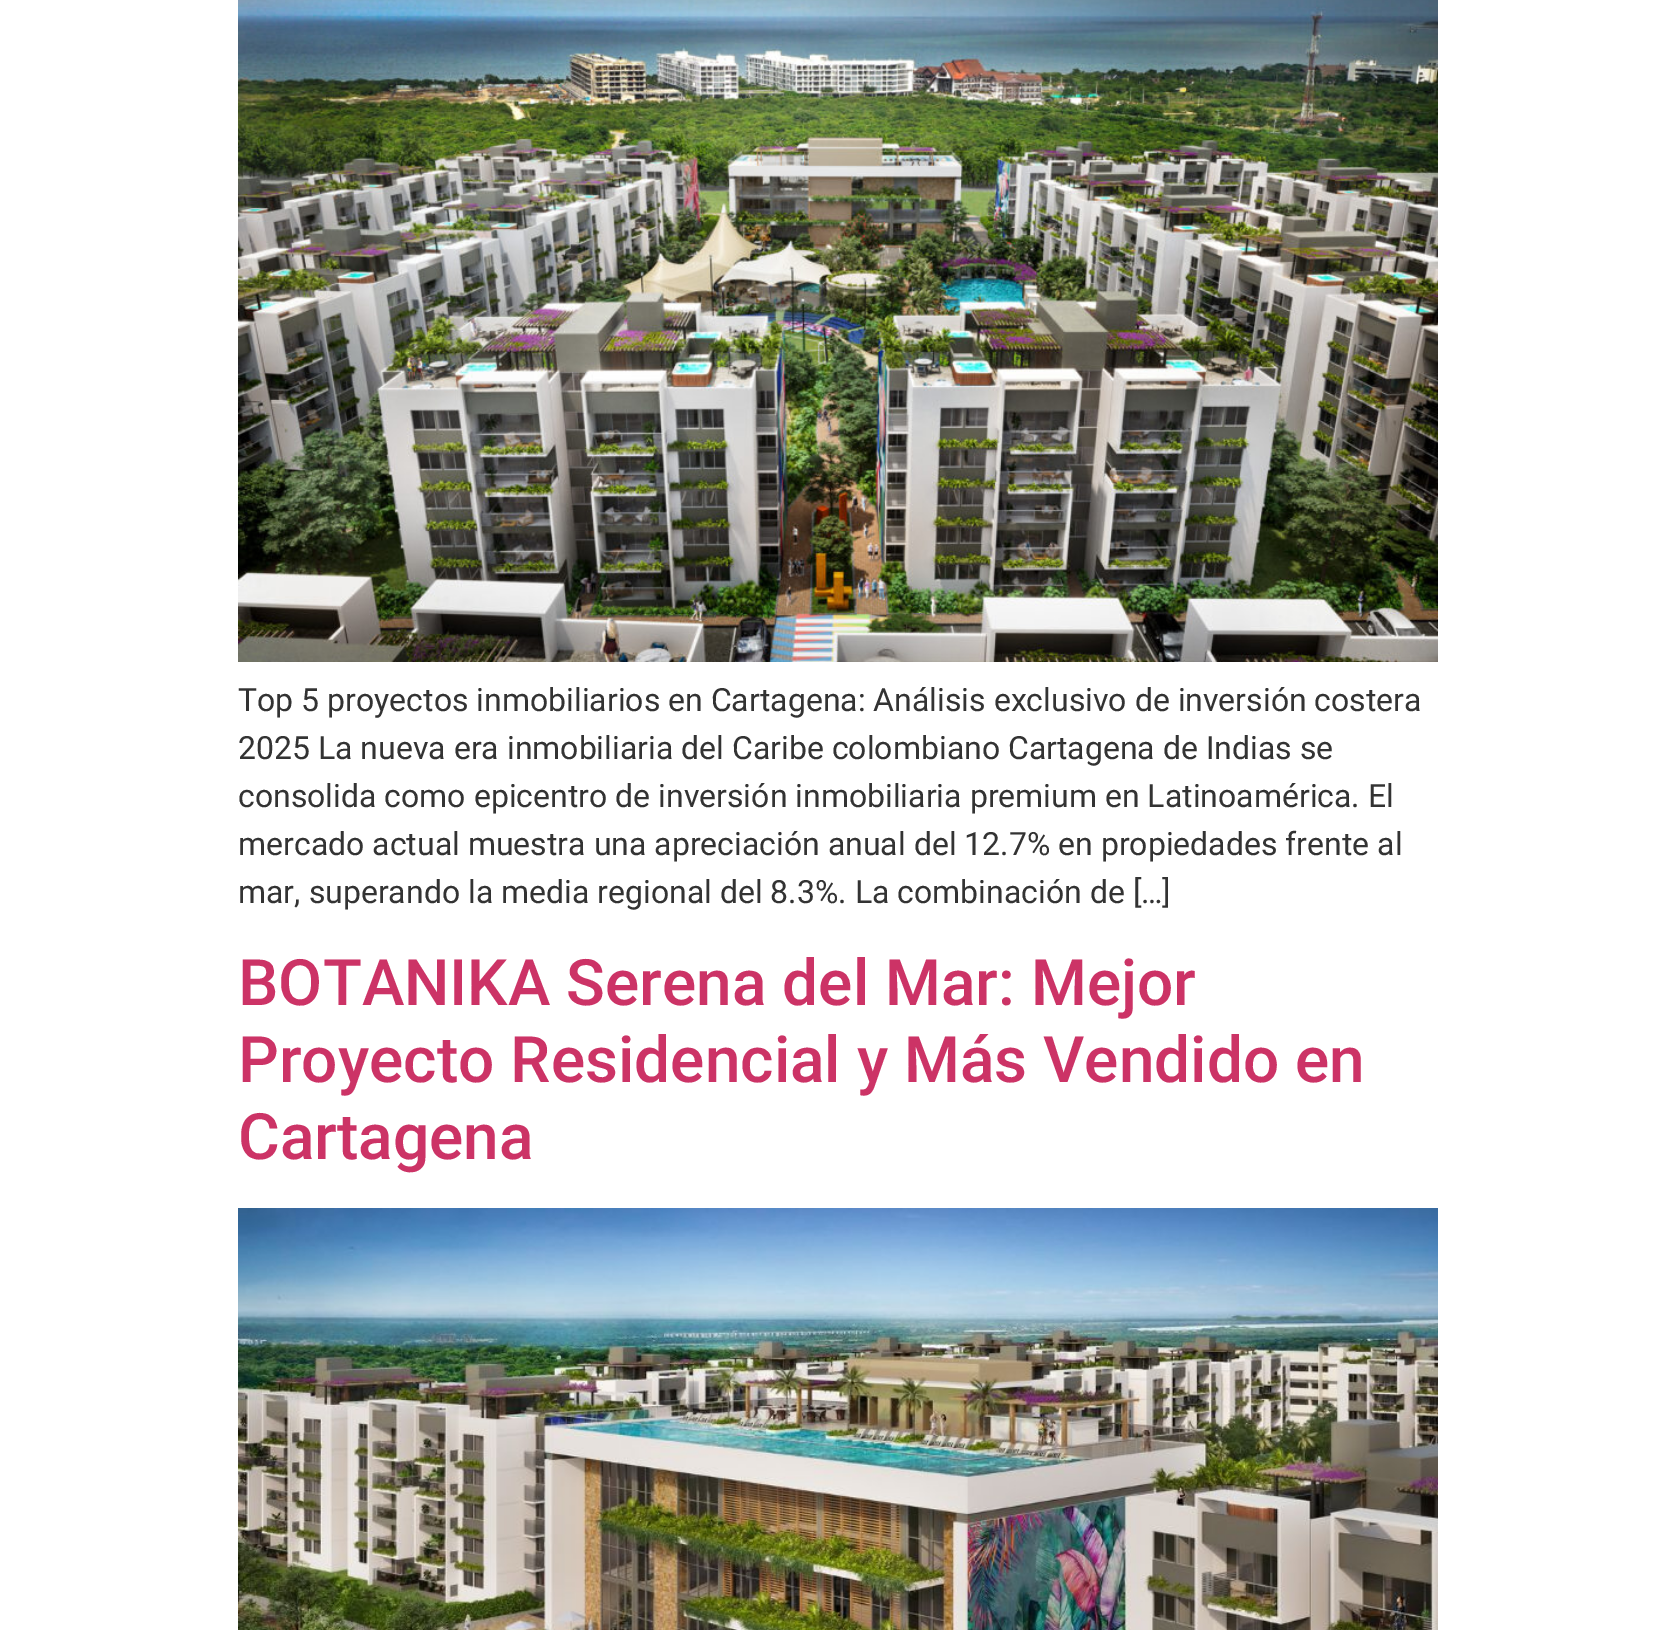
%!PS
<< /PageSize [1676 1630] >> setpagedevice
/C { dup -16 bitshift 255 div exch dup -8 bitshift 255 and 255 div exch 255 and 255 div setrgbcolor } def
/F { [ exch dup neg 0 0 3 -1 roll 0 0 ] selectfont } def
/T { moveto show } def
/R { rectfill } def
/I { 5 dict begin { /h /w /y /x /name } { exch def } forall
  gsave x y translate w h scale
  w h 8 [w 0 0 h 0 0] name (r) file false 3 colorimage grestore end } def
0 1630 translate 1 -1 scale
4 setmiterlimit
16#FFFFFF C
0 0 1676 1630 R
(1.rgb) 238 0 1200 662 I
/Roboto-Regular 32 F
16#333333 C
(Top 5 proyectos inmobiliarios en Cartagena: Análisis exclusivo de inversión costera) 238 711 T
(2025 La nueva era inmobiliaria del Caribe colombiano Cartagena de Indias se) 238 759 T
(consolida como epicentro de inversión inmobiliaria premium en Latinoamérica. El) 238 807 T
(mercado actual muestra una apreciación anual del 12.7% en propiedades frente al) 238 855 T
(mar, superando la media regional del 8.3%. La combinación de […]) 238 903 T
/Roboto-Medium 64 F
16#CC3366 C
(BOTANIKA Serena del Mar: Mejor) 238 1005 T
(Proyecto Residencial y Más Vendido en) 238 1082 T
(Cartagena) 238 1159 T
(2.rgb) 238 1208 1200 422 I
showpage
